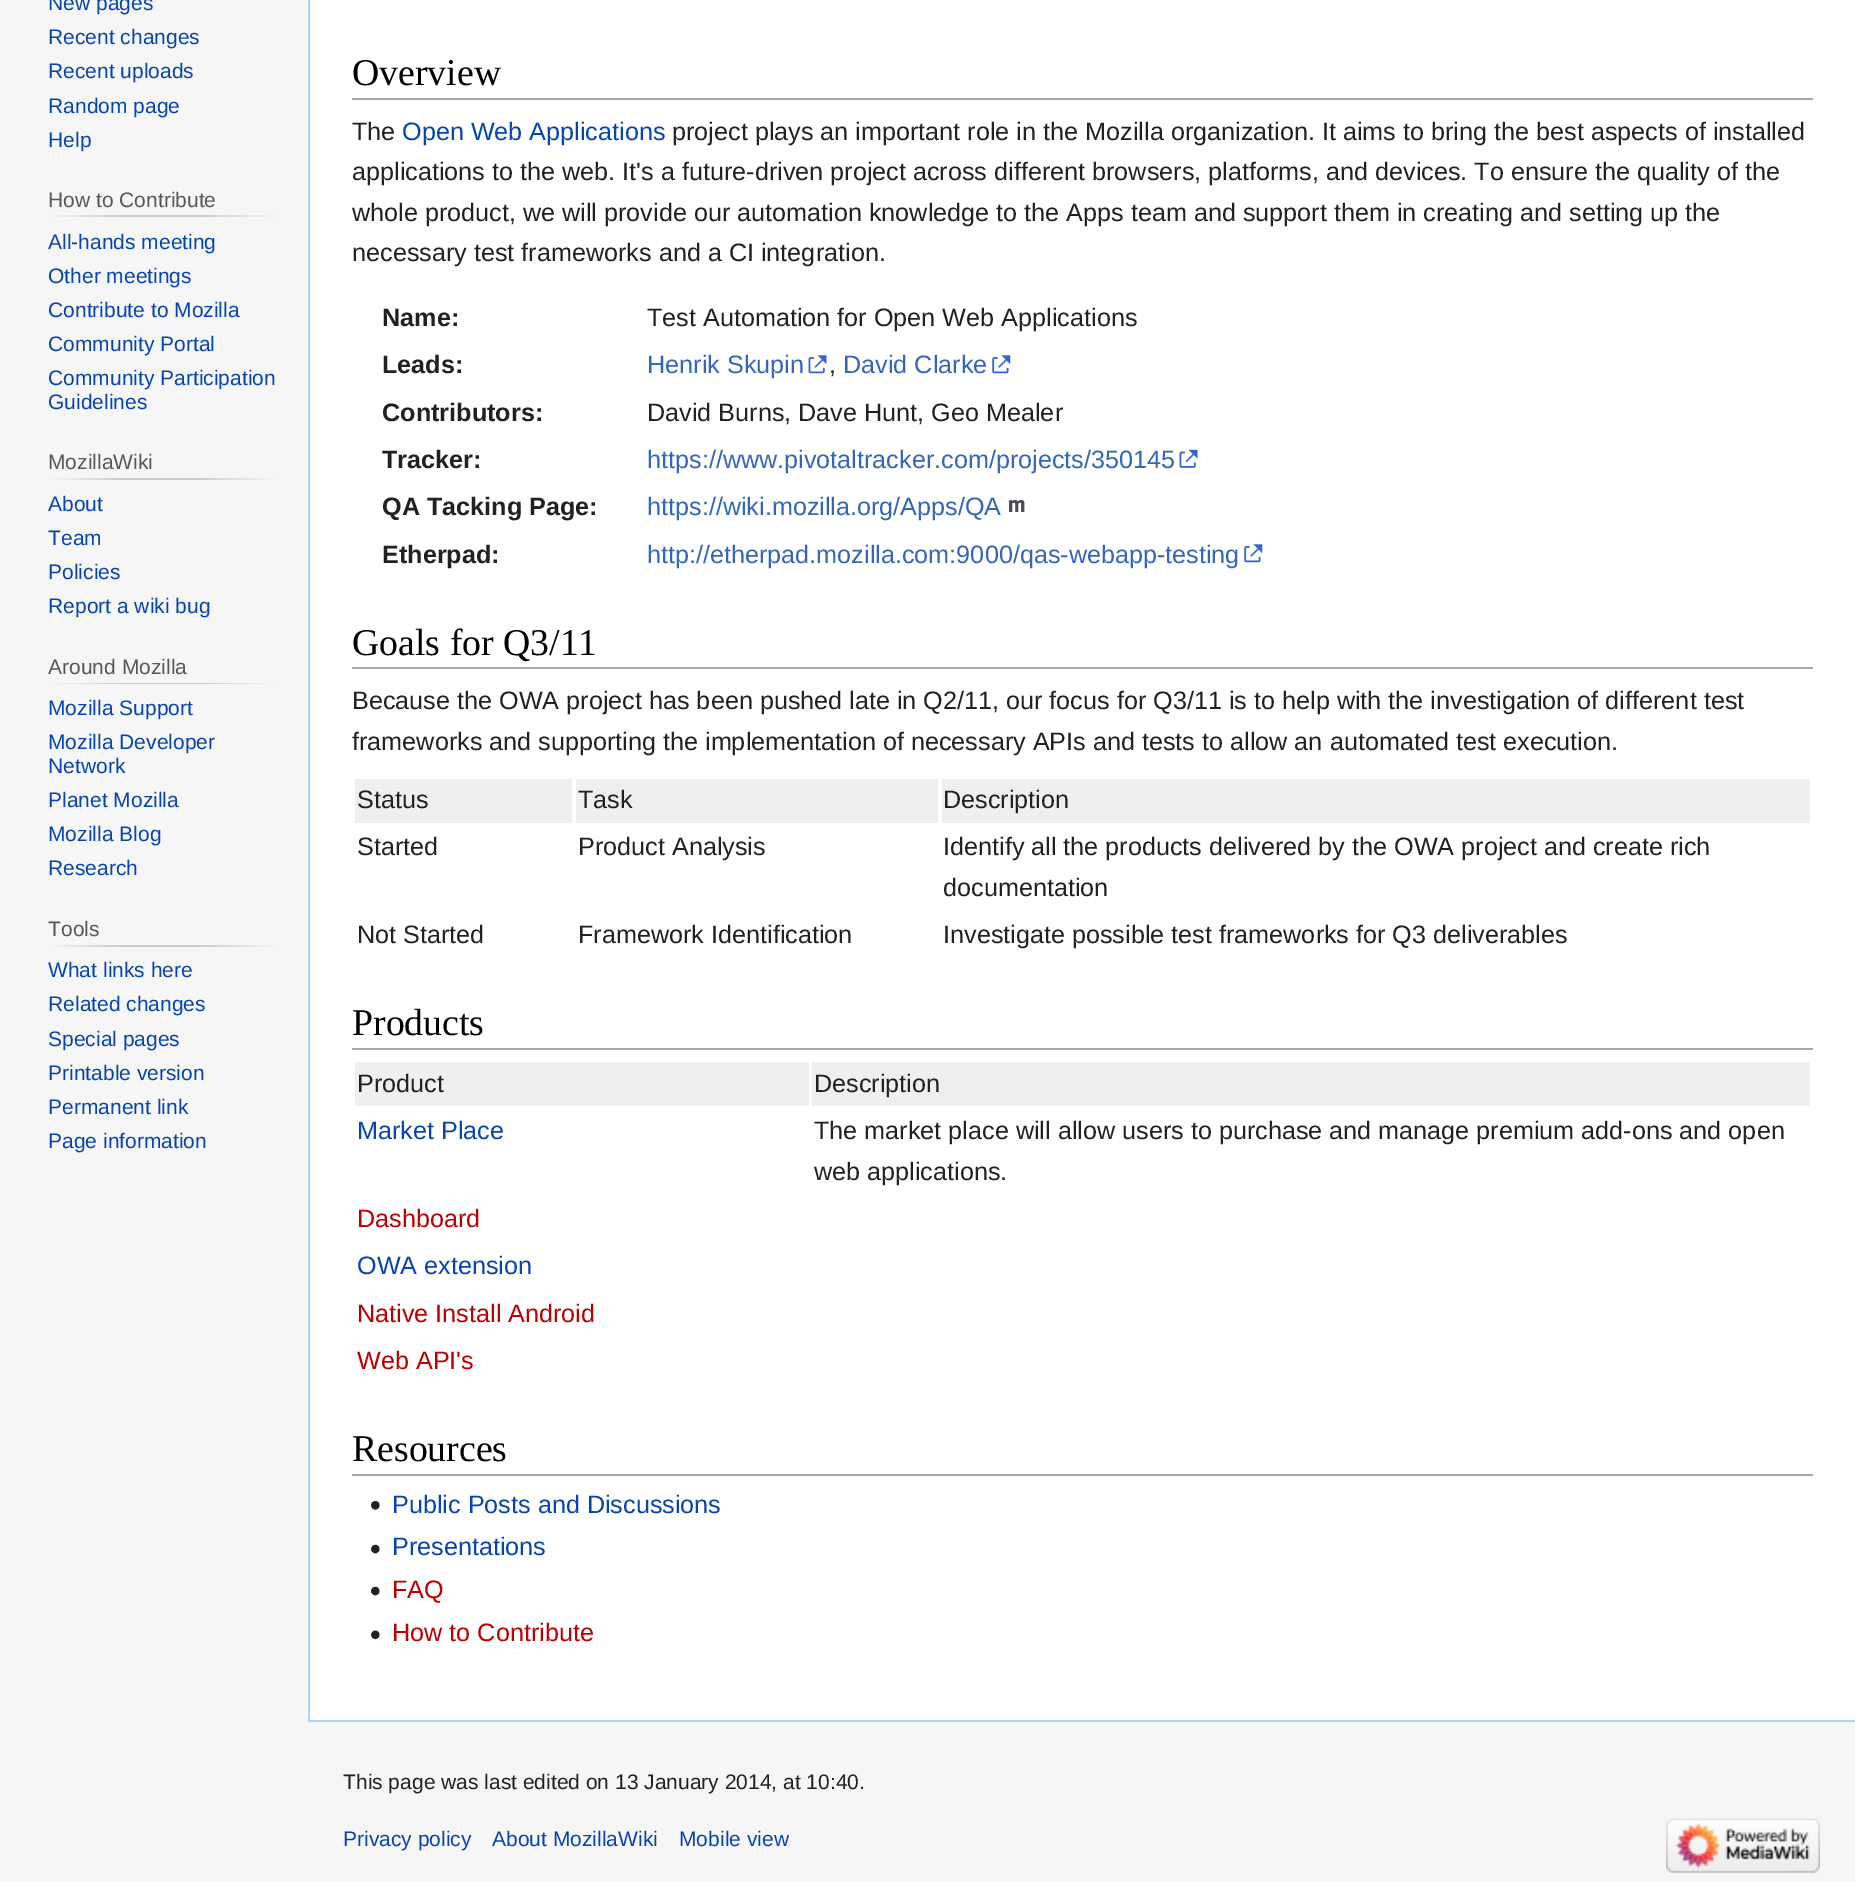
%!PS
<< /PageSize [1855 1882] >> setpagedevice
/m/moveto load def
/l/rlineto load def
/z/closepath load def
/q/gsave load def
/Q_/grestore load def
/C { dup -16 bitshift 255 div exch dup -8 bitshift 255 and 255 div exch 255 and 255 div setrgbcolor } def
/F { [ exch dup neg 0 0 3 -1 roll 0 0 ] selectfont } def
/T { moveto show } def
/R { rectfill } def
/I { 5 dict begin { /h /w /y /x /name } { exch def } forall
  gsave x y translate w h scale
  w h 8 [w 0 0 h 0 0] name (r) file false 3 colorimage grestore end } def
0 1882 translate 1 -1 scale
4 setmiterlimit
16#F6F6F6 C
0 0 1855 1882 R
/LiberationSans-Regular 21 F
16#0645AD C
(New pages) 48 10 T
(Recent changes) 48 44 T
(Recent uploads) 48 78 T
(Random page) 48 113 T
(Help) 48 147 T
q 47 215 m 230 0 l 0 2 l -230 0 l z clip newpath
<< /ShadingType 2 /ColorSpace /DeviceRGB /Coords [47 216 277 216] /Extend [true true] /Function << /FunctionType 3 /Domain [0 1] /Functions [<< /FunctionType 2 /Domain [0 1] /C0 [.965 .965 .965] /C1 [.784 .8 .82] /N 1 >> << /FunctionType 2 /Domain [0 1] /C0 [.784 .8 .82] /C1 [.784 .8 .82] /N 1 >> << /FunctionType 2 /Domain [0 1] /C0 [.784 .8 .82] /C1 [.965 .965 .965] /N 1 >>] /Bounds [.33 .66] /Encode [0 1 0 1 0 1] >> >> shfill Q_
16#54595D C
(How to Contribute) 48 207 T
16#0645AD C
(All-hands meeting) 48 249 T
(Other meetings) 48 283 T
(Contribute to Mozilla) 48 317 T
(Community Portal) 48 351 T
(Community Participation) 48 385 T
(Guidelines) 48 409 T
q 47 478 m 230 0 l 0 2 l -230 0 l z clip newpath
<< /ShadingType 2 /ColorSpace /DeviceRGB /Coords [47 479 277 479] /Extend [true true] /Function << /FunctionType 3 /Domain [0 1] /Functions [<< /FunctionType 2 /Domain [0 1] /C0 [.965 .965 .965] /C1 [.784 .8 .82] /N 1 >> << /FunctionType 2 /Domain [0 1] /C0 [.784 .8 .82] /C1 [.784 .8 .82] /N 1 >> << /FunctionType 2 /Domain [0 1] /C0 [.784 .8 .82] /C1 [.965 .965 .965] /N 1 >>] /Bounds [.33 .66] /Encode [0 1 0 1 0 1] >> >> shfill Q_
16#54595D C
(MozillaWiki) 48 469 T
16#0645AD C
(About) 48 511 T
(Team) 48 545 T
(Policies) 48 579 T
(Report a wiki bug) 48 613 T
q 47 683 m 230 0 l 0 1 l -230 0 l z clip newpath
<< /ShadingType 2 /ColorSpace /DeviceRGB /Coords [47 683 277 683] /Extend [true true] /Function << /FunctionType 3 /Domain [0 1] /Functions [<< /FunctionType 2 /Domain [0 1] /C0 [.965 .965 .965] /C1 [.784 .8 .82] /N 1 >> << /FunctionType 2 /Domain [0 1] /C0 [.784 .8 .82] /C1 [.784 .8 .82] /N 1 >> << /FunctionType 2 /Domain [0 1] /C0 [.784 .8 .82] /C1 [.965 .965 .965] /N 1 >>] /Bounds [.33 .66] /Encode [0 1 0 1 0 1] >> >> shfill Q_
16#54595D C
(Around Mozilla) 48 674 T
16#0645AD C
(Mozilla Support) 48 715 T
(Mozilla Developer) 48 749 T
(Network) 48 773 T
(Planet Mozilla) 48 807 T
(Mozilla Blog) 48 841 T
(Research) 48 875 T
q 47 945 m 230 0 l 0 2 l -230 0 l z clip newpath
<< /ShadingType 2 /ColorSpace /DeviceRGB /Coords [47 946 277 946] /Extend [true true] /Function << /FunctionType 3 /Domain [0 1] /Functions [<< /FunctionType 2 /Domain [0 1] /C0 [.965 .965 .965] /C1 [.784 .8 .82] /N 1 >> << /FunctionType 2 /Domain [0 1] /C0 [.784 .8 .82] /C1 [.784 .8 .82] /N 1 >> << /FunctionType 2 /Domain [0 1] /C0 [.784 .8 .82] /C1 [.965 .965 .965] /N 1 >>] /Bounds [.33 .66] /Encode [0 1 0 1 0 1] >> >> shfill Q_
16#54595D C
(Tools) 48 936 T
16#0645AD C
(What links here) 48 977 T
(Related changes) 48 1011 T
(Special pages) 48 1046 T
(Printable version) 48 1080 T
(Permanent link) 48 1114 T
(Page information) 48 1148 T
16#FFFFFF C
310 0 1545 1720 R
16#A7D7F9 C
308 1720 1547 2 R
308 0 2 1722 R
16#A2A9B1 C
352 98 1461 2 R
/LiberationSerif-Regular 37.75 F
16#000000 C
(Overview) 352 85 T
/LiberationSans-Regular 25.2 F
16#202122 C
(The) 352 140 T
16#0645AD C
(Open Web Applications) 402 140 T
16#202122 C
(project plays an important role in the Mozilla organization. It aims to bring the best aspects of installed) 672 140 T
(applications to the web. It's a future-driven project across different browsers, platforms, and devices. To ensure the quality of the) 352 180 T
(whole product, we will provide our automation knowledge to the Apps team and support them in creating and setting up the) 352 221 T
(necessary test frameworks and a CI integration.) 352 261 T
/LiberationSans-Bold 25.2 F
(Name:) 382 326 T
/LiberationSans-Regular 25.2 F
(Test Automation for Open Web Applications) 647 326 T
/LiberationSans-Bold 25.2 F
(Leads:) 382 373 T
/LiberationSans-Regular 25.2 F
16#3366BB C
(Henrik Skupin) 647 373 T
(1.rgb) 808 355 19 19 I
16#202122 C
(,) 829 373 T
16#3366BB C
(David Clarke) 843 373 T
(2.rgb) 992 355 19 19 I
/LiberationSans-Bold 25.2 F
16#202122 C
(Contributors:) 382 421 T
/LiberationSans-Regular 25.2 F
(David Burns, Dave Hunt, Geo Mealer) 647 421 T
/LiberationSans-Bold 25.2 F
(Tracker:) 382 468 T
/LiberationSans-Regular 25.2 F
16#3366BB C
(https://www.pivotaltracker.com/projects/350145) 647 468 T
(3.rgb) 1179 449 19 19 I
/LiberationSans-Bold 25.2 F
16#202122 C
(QA Tacking Page:) 382 515 T
/LiberationSans-Regular 25.2 F
16#3366BB C
(https://wiki.mozilla.org/Apps/QA) 647 515 T
(4.rgb) 1008 500 17 12 I
/LiberationSans-Bold 25.2 F
16#202122 C
(Etherpad:) 382 563 T
/LiberationSans-Regular 25.2 F
16#3366BB C
(http://etherpad.mozilla.com:9000/qas-webapp-testing) 647 563 T
(2.rgb) 1244 544 19 19 I
16#A2A9B1 C
352 667 1461 2 R
/LiberationSerif-Regular 37.75 F
16#000000 C
(Goals for Q3/11) 352 655 T
/LiberationSans-Regular 25.2 F
16#202122 C
(Because the OWA project has been pushed late in Q2/11, our focus for Q3/11 is to help with the investigation of different test) 352 709 T
(frameworks and supporting the implementation of necessary APIs and tests to allow an automated test execution.) 352 750 T
16#EFEFEF C
355 779 217 44 R
16#202122 C
(Status) 357 808 T
16#EFEFEF C
576 779 362 44 R
16#202122 C
(Task) 578 808 T
16#EFEFEF C
942 779 868 44 R
16#202122 C
(Description) 943 808 T
(Started) 357 855 T
(Product Analysis) 578 855 T
(Identify all the products delivered by the OWA project and create rich) 943 855 T
(documentation) 943 896 T
(Not Started) 357 943 T
(Framework Identification) 578 943 T
(Investigate possible test frameworks for Q3 deliverables) 943 943 T
16#A2A9B1 C
352 1048 1461 2 R
/LiberationSerif-Regular 37.75 F
16#000000 C
(Products) 352 1035 T
16#EFEFEF C
355 1062 454 44 R
/LiberationSans-Regular 25.2 F
16#202122 C
(Product) 357 1092 T
16#EFEFEF C
812 1062 998 44 R
16#202122 C
(Description) 814 1092 T
16#0645AD C
(Market Place) 357 1139 T
16#202122 C
(The market place will allow users to purchase and manage premium add-ons and open) 814 1139 T
(web applications.) 814 1180 T
16#BA0000 C
(Dashboard) 357 1227 T
16#0645AD C
(OWA extension) 357 1274 T
16#BA0000 C
(Native Install Android) 357 1322 T
(Web API's) 357 1369 T
16#A2A9B1 C
352 1474 1461 2 R
/LiberationSerif-Regular 37.75 F
16#000000 C
(Resources) 352 1461 T
(5.rgb) 371 1501 9 9 I
/LiberationSans-Regular 25.2 F
16#0645AD C
(Public Posts and Discussions) 392 1513 T
(6.rgb) 371 1544 9 10 I
(Presentations) 392 1555 T
(6.rgb) 371 1586 9 10 I
16#BA0000 C
(FAQ) 392 1598 T
(7.rgb) 371 1630 9 10 I
(How to Contribute) 392 1641 T
/LiberationSans-Regular 21 F
16#202122 C
(This page was last edited on 13 January 2014, at 10:40.) 343 1789 T
16#0645AD C
(Privacy policy) 343 1846 T
(About MozillaWiki) 492 1846 T
(Mobile view) 679 1846 T
(8.rgb) 1666 1818 154 55 I
showpage
